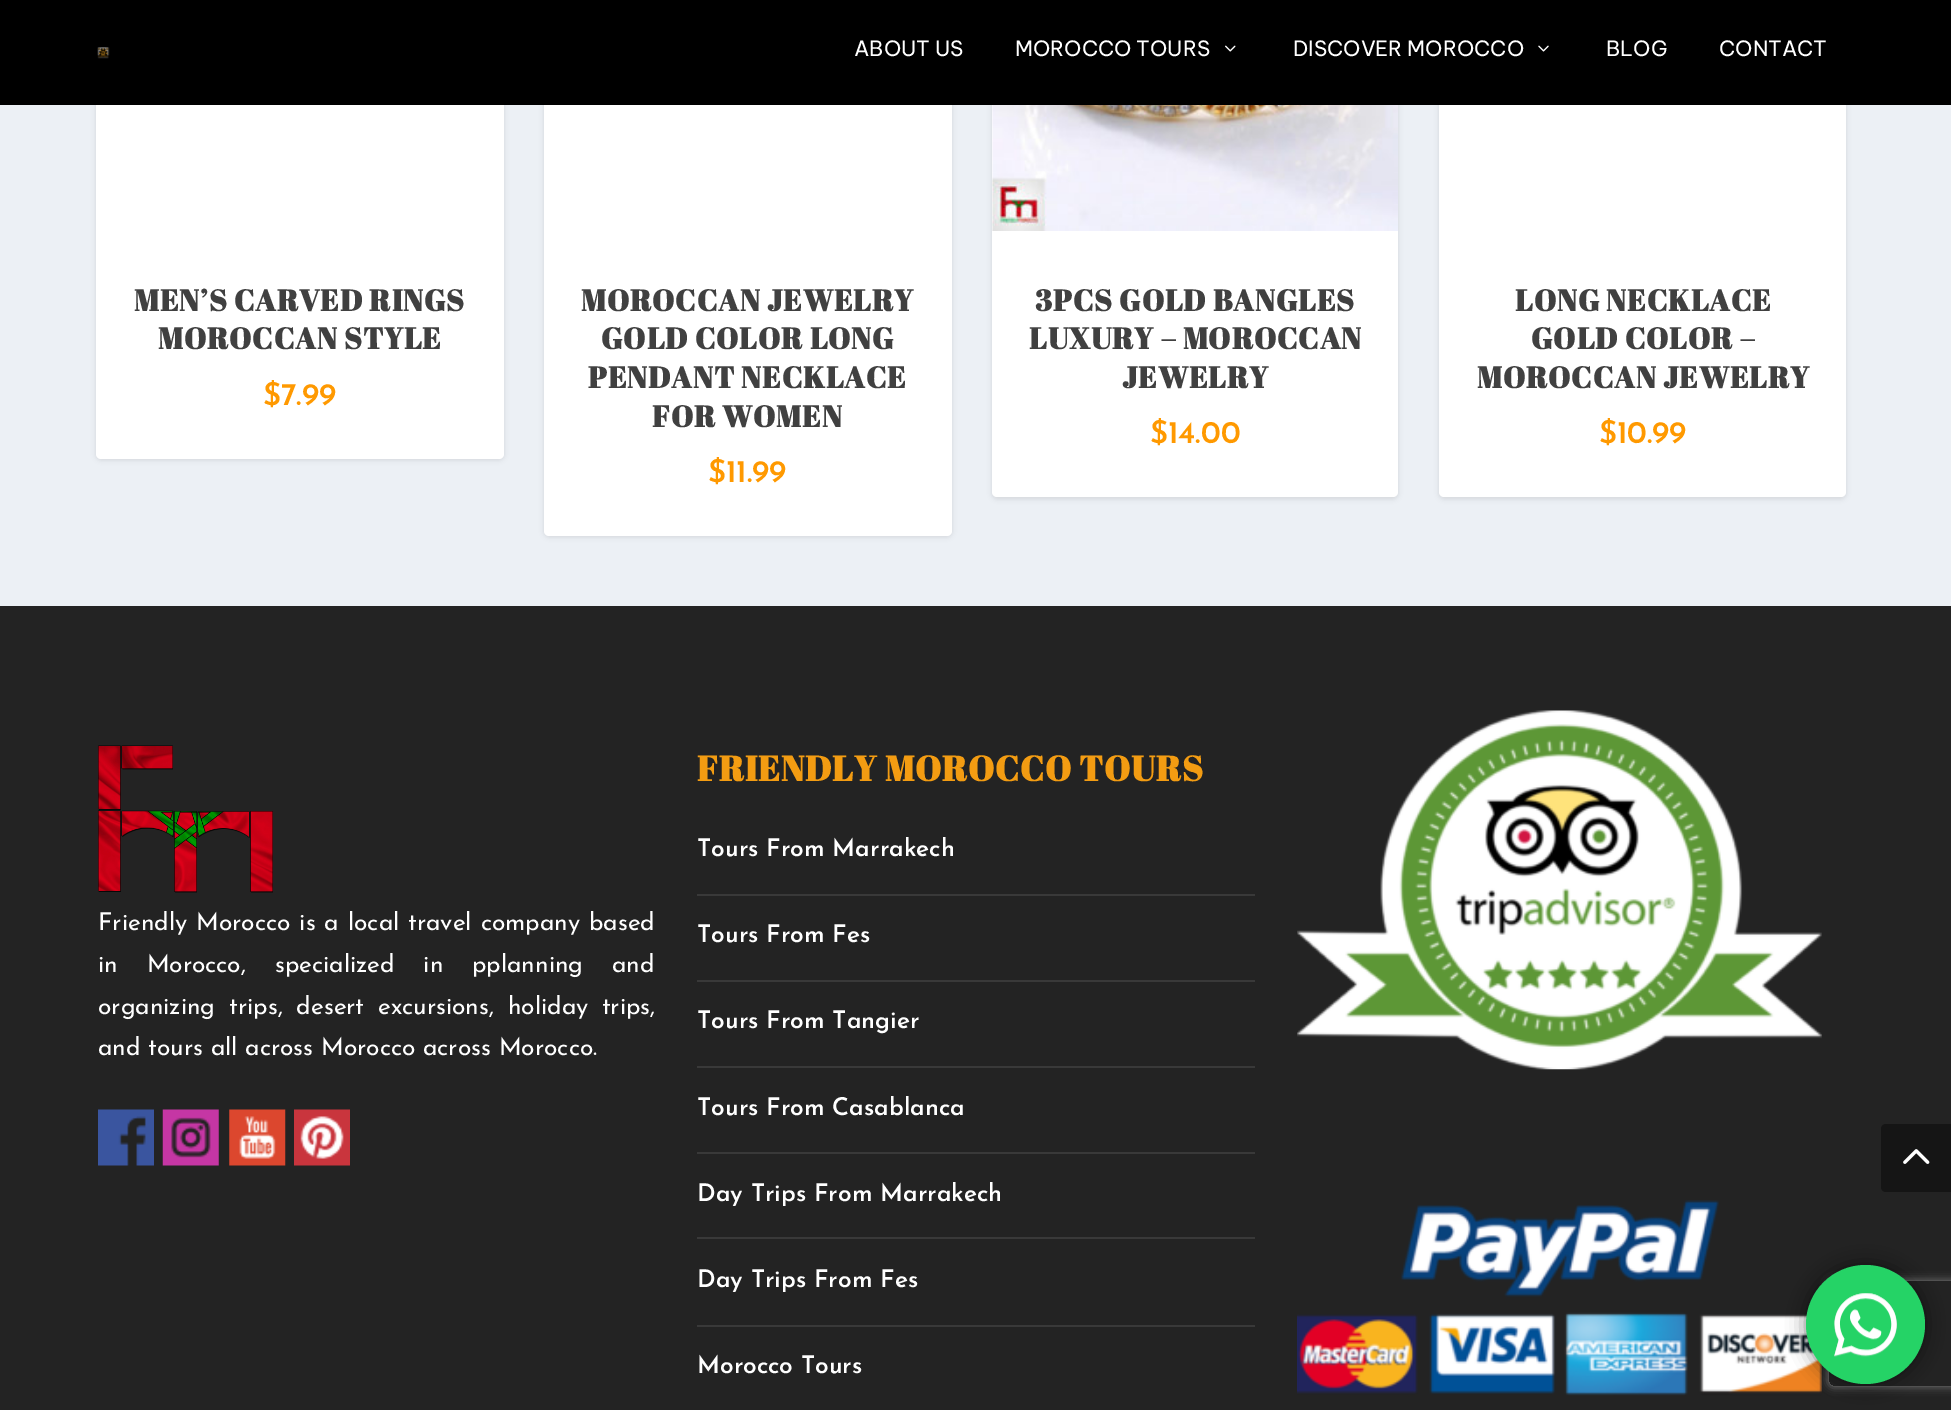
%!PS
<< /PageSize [1951 1410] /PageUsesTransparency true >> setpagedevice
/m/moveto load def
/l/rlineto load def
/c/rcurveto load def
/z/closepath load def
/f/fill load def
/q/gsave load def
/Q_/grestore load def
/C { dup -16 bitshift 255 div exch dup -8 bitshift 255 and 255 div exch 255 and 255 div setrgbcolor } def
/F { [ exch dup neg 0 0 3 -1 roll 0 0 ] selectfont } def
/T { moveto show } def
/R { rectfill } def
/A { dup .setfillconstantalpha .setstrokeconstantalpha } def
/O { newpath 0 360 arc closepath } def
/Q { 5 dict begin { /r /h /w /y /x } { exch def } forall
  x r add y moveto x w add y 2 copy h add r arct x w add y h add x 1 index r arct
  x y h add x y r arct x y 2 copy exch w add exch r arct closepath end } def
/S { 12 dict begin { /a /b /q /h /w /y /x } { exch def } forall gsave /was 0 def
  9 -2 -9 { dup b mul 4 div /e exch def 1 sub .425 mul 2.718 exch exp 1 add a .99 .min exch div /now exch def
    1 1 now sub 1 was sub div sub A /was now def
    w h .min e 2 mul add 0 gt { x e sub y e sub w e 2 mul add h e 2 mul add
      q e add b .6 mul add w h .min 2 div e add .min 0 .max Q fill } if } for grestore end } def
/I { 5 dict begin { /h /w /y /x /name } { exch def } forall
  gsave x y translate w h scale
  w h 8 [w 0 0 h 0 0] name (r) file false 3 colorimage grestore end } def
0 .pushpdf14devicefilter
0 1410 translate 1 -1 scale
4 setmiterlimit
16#ECF0F5 C
0 0 1951 1410 R
16#000000 C
96 -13 408 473 5 2.5 .1 S
16#FFFFFF C
96 -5 408 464 5 Q f
16#000000 C
544 -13 408 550 5 2.5 .1 S
16#FFFFFF C
544 -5 408 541 5 Q f
16#000000 C
992 -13 406 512 5 2.5 .1 S
16#FFFFFF C
992 -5 406 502 5 Q f
16#000000 C
1439 -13 407 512 5 2.5 .1 S
16#FFFFFF C
1439 -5 407 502 5 Q f
16#000000 C
0 0 1951 105 R
(1.rgb) 97 47 13 12 I
/BeVietnamPro-Regular 21 F
16#FFFFFF C
(ABOUT US) 854 56 T
(MOROCCO TOURS) 1015 56 T
(2.rgb) 1225 45 11 7 I
(DISCOVER MOROCCO) 1293 56 T
(3.rgb) 1538 45 11 7 I
(BLOG) 1606 56 T
(CONTACT) 1719 56 T
/AbrilFatface-Bold 29.75 F
16#404040 C
134 311 m .9 0 (MEN’S CARVED RINGS) ashow
158 349 m .9 0 (MOROCCAN STYLE) ashow
/JosefinSans-SemiBold 31.5 F
16#FF9900 C
($7.99) 263 405 T
/AbrilFatface-Bold 29.75 F
16#404040 C
581 311 m .9 0 (MOROCCAN JEWELRY) ashow
601 349 m .9 0 (GOLD COLOR LONG) ashow
588 388 m .9 0 (PENDANT NECKLACE) ashow
652 427 m .9 0 (FOR WOMEN) ashow
/JosefinSans-SemiBold 31.5 F
16#FF9900 C
($11.99) 708 482 T
(4.rgb) 992 105 406 126 I
/AbrilFatface-Bold 29.75 F
16#404040 C
1035 311 m .9 0 (3PCS GOLD BANGLES) ashow
1029 349 m .9 0 (LUXURY – MOROCCAN) ashow
1122 388 m .9 0 (JEWELRY) ashow
/JosefinSans-SemiBold 31.5 F
16#FF9900 C
($14.00) 1150 443 T
/AbrilFatface-Bold 29.75 F
16#404040 C
1515 311 m .9 0 (LONG NECKLACE) ashow
1531 349 m .9 0 (GOLD COLOR –) ashow
1477 388 m .9 0 (MOROCCAN JEWELRY) ashow
/JosefinSans-SemiBold 31.5 F
16#FF9900 C
($10.99) 1599 443 T
16#232323 C
0 606 1951 804 R
(5.rgb) 98 745 175 148 I
/JosefinSans-Regular 24.5 F
16#FFFFFF C
98 930 m 1.25 0 32 (Friendly Morocco is a local travel company based) widthshow
98 972 m 21 0 32 (in Morocco, specialized in pplanning and) widthshow
98 1014 m 6 0 32 (organizing trips, desert excursions, holiday trips,) widthshow
(and tours all across Morocco across Morocco.) 98 1055 T
(6.rgb) 98 1109 56 57 I
(7.rgb) 162 1109 57 57 I
(8.rgb) 229 1109 57 57 I
(9.rgb) 294 1109 56 57 I
/AbrilFatface-Bold 35 F
16#F39C12 C
697 781 m .9 0 (FRIENDLY MOROCCO TOURS) ashow
16#393939 C
697 894 558 2 R
/JosefinSans-SemiBold 24.5 F
16#FFFFFF C
(Tours From Marrakech) 697 856 T
16#393939 C
697 980 558 2 R
16#FFFFFF C
(Tours From Fes) 697 942 T
16#393939 C
697 1066 558 2 R
16#FFFFFF C
(Tours From Tangier) 697 1028 T
16#393939 C
697 1152 558 2 R
16#FFFFFF C
(Tours From Casablanca) 697 1115 T
16#393939 C
697 1237 558 2 R
16#FFFFFF C
(Day Trips From Marrakech) 697 1201 T
16#393939 C
697 1325 558 2 R
16#FFFFFF C
(Day Trips From Fes) 697 1287 T
(Morocco Tours) 697 1373 T
(10.rgb) 1297 710 525 360 I
(11.rgb) 1297 1200 525 196 I
16#151515 C
1886 1124 m 65 0 l 0 68 l -65 0 l -3 0 -5 -2 -5 -5 c 0 -58 l 0 -3 2 -5 5 -5 c z f
(12.rgb) 1903 1149 27 15 I
16#000000 C
1806 1265 119 119 59.5 9.5 .5 S
q
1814 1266 m 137 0 l 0 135 l -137 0 l z 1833 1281 m 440 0 l 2 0 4 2 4 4 c 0 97 l 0 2 -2 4 -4 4 c -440 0 l -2 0 -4 -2 -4 -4 c 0 -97 l 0 -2 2 -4 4 -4 c z eoclip newpath
16#808080 C
1829 1281 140 105 4 4.5 1 S
Q_
16#25D366 C
1865.5 1324.5 59.5 O f
(13.rgb) 1834 1293 63 64 I
.poppdf14devicefilter showpage
